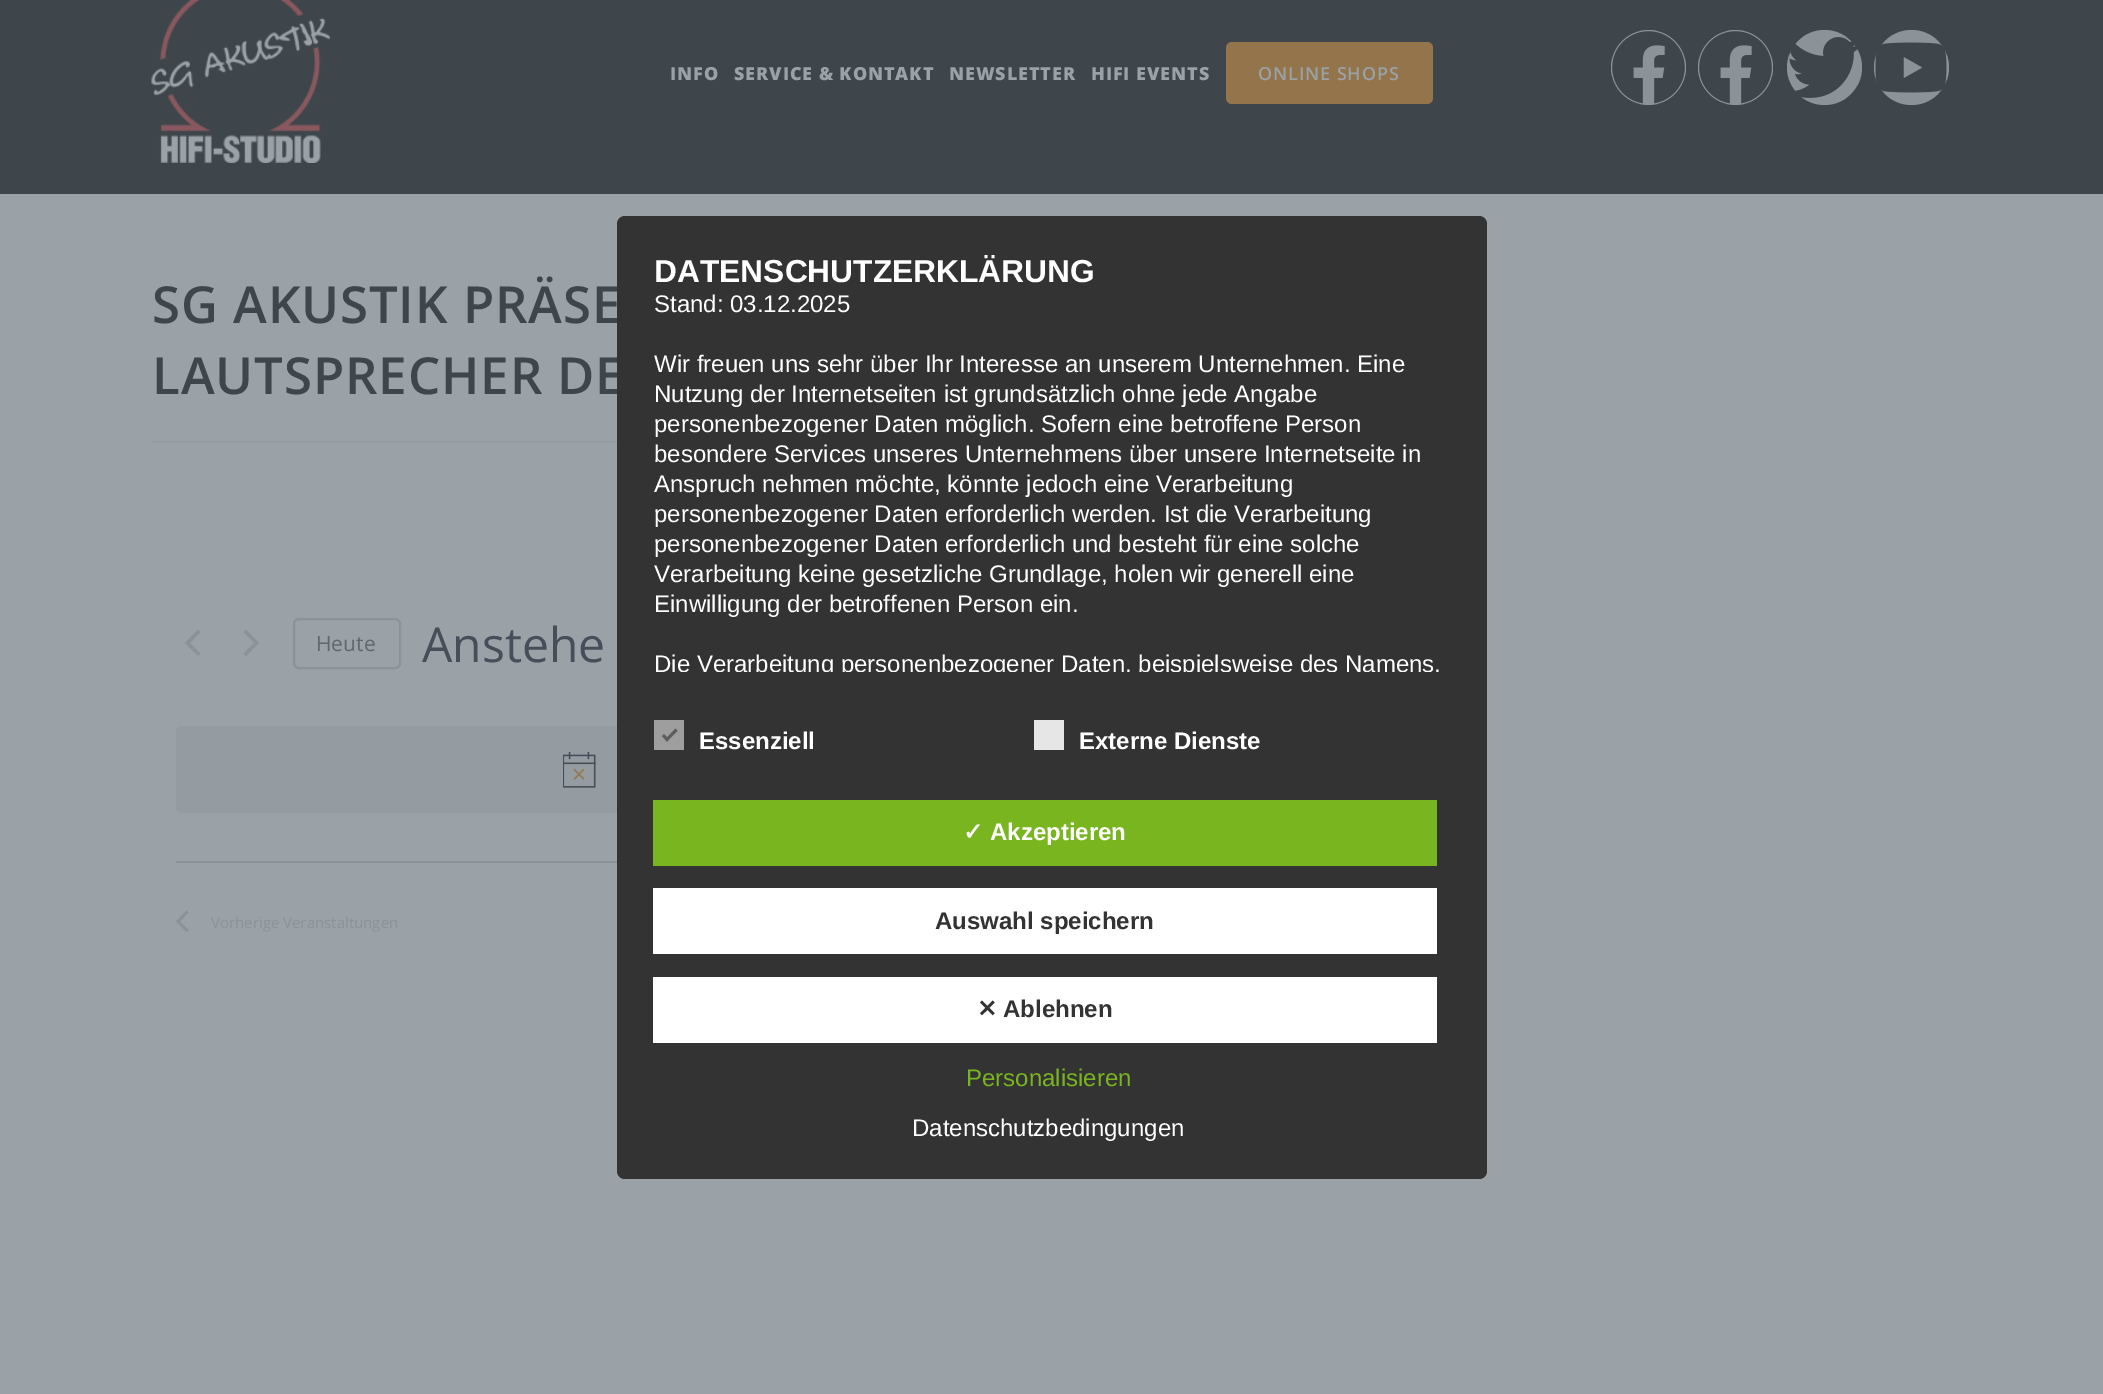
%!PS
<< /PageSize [2103 1394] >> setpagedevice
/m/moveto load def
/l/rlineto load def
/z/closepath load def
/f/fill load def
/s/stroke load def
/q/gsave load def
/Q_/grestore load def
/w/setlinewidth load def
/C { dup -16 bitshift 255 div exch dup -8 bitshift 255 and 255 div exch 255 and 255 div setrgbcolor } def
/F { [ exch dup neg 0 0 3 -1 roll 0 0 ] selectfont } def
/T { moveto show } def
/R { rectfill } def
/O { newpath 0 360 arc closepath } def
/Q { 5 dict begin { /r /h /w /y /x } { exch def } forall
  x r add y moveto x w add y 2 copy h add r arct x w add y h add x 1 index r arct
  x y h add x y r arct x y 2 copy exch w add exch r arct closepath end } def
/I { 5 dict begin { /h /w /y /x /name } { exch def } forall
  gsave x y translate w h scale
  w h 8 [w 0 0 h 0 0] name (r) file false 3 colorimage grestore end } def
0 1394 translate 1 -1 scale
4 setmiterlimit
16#9BA2A7 C
0 0 2103 1394 R
16#3F464B C
0 0 2103 194 R
(1.rgb) 151 0 179 163 I
/OpenSans-ExtraBold 18 F
16#9BA2A7 C
670 80 m .9 0 (INFO) ashow
734 80 m .9 0 (SERVICE & KONTAKT) ashow
949 80 m .9 0 (NEWSLETTER) ashow
1091 80 m .9 0 (HIFI EVENTS) ashow
16#94744B C
1226 42 207 62 6 Q f
/OpenSans-SemiBold 18 F
16#9BA2A7 C
1258 80 m .9 0 (ONLINE SHOPS) ashow
16#8B9398 C
1648.5 67.5 37.5 O f
(2.rgb) 1612 31 73 73 I
1735.5 67.5 37.5 O f
(2.rgb) 1699 31 73 73 I
1824.5 67.5 37.5 O f
(3.rgb) 1789 37 69 61 I
1911.5 67.5 37.5 O f
(4.rgb) 1875 42 72 51 I
16#959DA2 C
152 441 465 2 R
/OpenSans-SemiBold 51 F
16#3F464B C
152 323 m .9 0 (SG AKUSTIK PRÄSE) ashow
152 394 m .9 0 (LAUTSPRECHER DE) ashow
16#8B9398 C
200.5 653.5 m -2.5 2.5 l -13 -13 l 13 -13.5 l 2.5 2.5 l -10.5 11 l z f
243.5 632 m 2.5 -2.5 l 13 13.5 l -13 13 l -2.5 -2.5 l 10.5 -10.5 l z f
2 w
294 619 106 49 5 Q s
/OpenSans-Regular 21 F
16#60686C C
(Heute) 316 651 T
/OpenSans-Regular 48 F
16#464F59 C
(Anstehe) 422 662 T
16#959CA1 C
176 726 1255 87 6 Q f
(5.rgb) 563 752 33 36 I
16#8B9398 C
176 861 441 2 R
188.5 930 m -2 2 l -10.5 -10.5 l 10.5 -11 l 2 2 l -8.5 9 l z f
/OpenSans-Regular 15 F
(Vorherige Veranstaltungen) 211 928 T
16#333333 C
617 216 870 963 8 Q f
/LiberationSans-Bold 31.75 F
16#FFFFFF C
(DATENSCHUTZERKLÄRUNG) 654 282 T
/LiberationSans-Regular 24 F
(Stand: 03.12.2025) 654 312 T
(Wir freuen uns sehr über Ihr Interesse an unserem Unternehmen. Eine) 654 372 T
(Nutzung der Internetseiten ist grundsätzlich ohne jede Angabe) 654 402 T
(personenbezogener Daten möglich. Sofern eine betroffene Person) 654 432 T
(besondere Services unseres Unternehmens über unsere Internetseite in) 654 462 T
(Anspruch nehmen möchte, könnte jedoch eine Verarbeitung) 654 492 T
(personenbezogener Daten erforderlich werden. Ist die Verarbeitung) 654 522 T
(personenbezogener Daten erforderlich und besteht für eine solche) 654 552 T
(Verarbeitung keine gesetzliche Grundlage, holen wir generell eine) 654 582 T
(Einwilligung der betroffenen Person ein.) 654 612 T
q
654 254 810 418 rectclip
(Die Verarbeitung personenbezogener Daten, beispielsweise des Namens,) 654 672 T
Q_
16#9E9E9E C
654 720 30 30 R
16#5E5E5E C
675.5 728.5 m 2 2.5 l -10.5 10.5 l -2 -2 l z f
664 734 m 5 5.5 l -2 2 l -5 -5.5 l z f
/LiberationSans-Bold 24 F
16#FFFFFF C
(Essenziell) 699 749 T
16#E6E6E6 C
1034 720 30 30 R
16#FFFFFF C
(Externe Dienste) 1079 749 T
16#79B51F C
653 800 784 66 R
/DejaVuSans-Bold 24 F
16#FFFFFF C
(✓) 963 840 T
/LiberationSans-Bold 24 F
(Akzeptieren) 990 840 T
653 888 784 66 R
16#333333 C
(Auswahl speichern) 935 929 T
16#FFFFFF C
653 977 784 66 R
/DejaVuSans-Bold 24 F
16#333333 C
(✕) 977 1017 T
/LiberationSans-Bold 24 F
(Ablehnen) 1003 1017 T
/LiberationSans-Regular 24 F
16#79B51F C
(Personalisieren) 966 1086 T
16#FFFFFF C
(Datenschutzbedingungen) 912 1136 T
showpage
